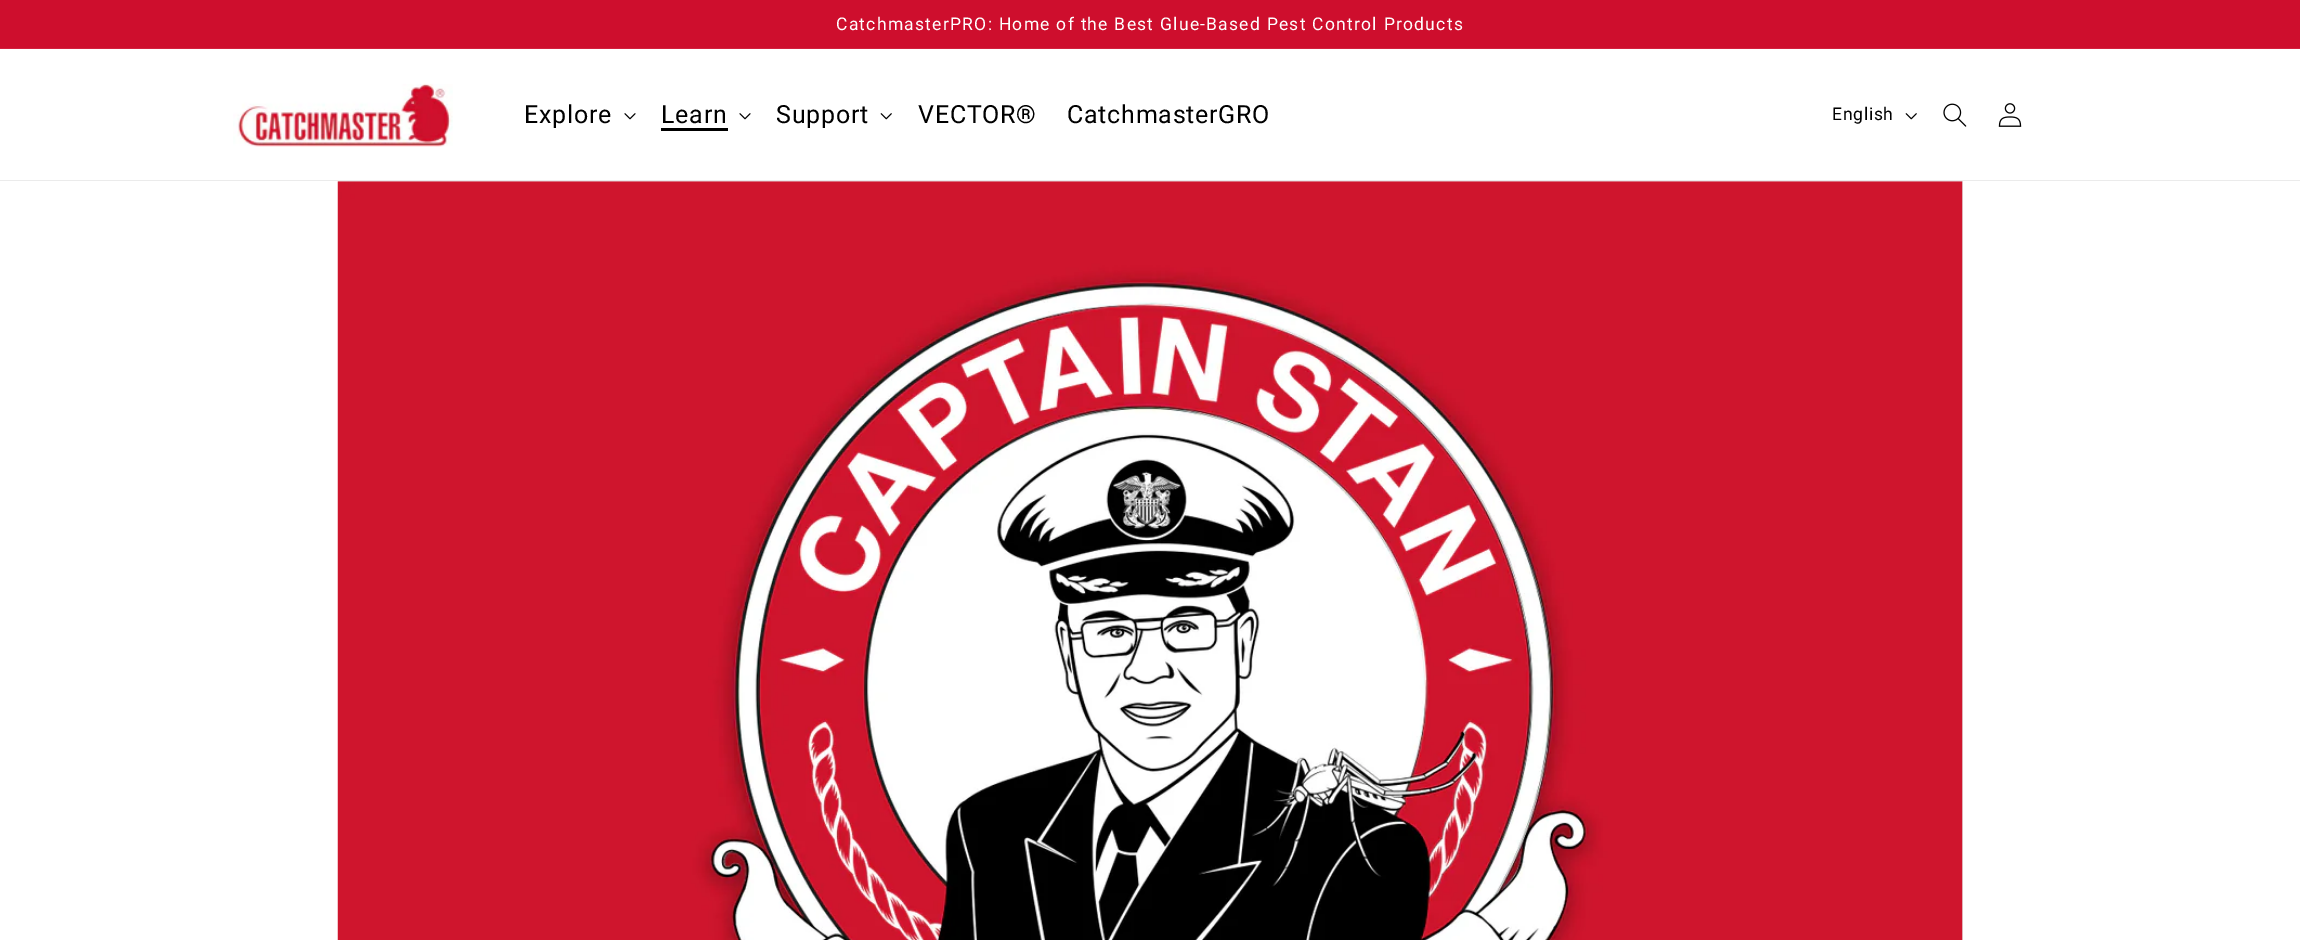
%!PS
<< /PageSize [2300 940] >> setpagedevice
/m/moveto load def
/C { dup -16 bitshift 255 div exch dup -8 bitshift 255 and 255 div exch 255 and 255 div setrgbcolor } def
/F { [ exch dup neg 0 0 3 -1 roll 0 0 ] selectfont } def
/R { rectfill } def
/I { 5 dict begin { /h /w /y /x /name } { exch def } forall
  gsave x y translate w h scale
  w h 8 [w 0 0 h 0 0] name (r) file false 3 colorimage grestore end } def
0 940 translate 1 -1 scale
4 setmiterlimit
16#FFFFFF C
0 0 2300 940 R
16#CE0E2D C
0 0 2300 48 R
16#D2213E C
0 48 2300 1 R
/Roboto-Regular 17.5 F
16#FFFFFF C
836 30 m 1.25 0 (CatchmasterPRO: Home of the Best Glue-Based Pest Control Products) ashow
16#EBEBEB C
0 180 2300 1 R
(1.rgb) 233 83 220 64 I
/Roboto-Regular 25 F
16#000000 C
524 123 m .75 0 (Explore) ashow
(2.rgb) 624 113 12 7 I
661 123 m .75 0 (Learn) ashow
661 128 67 3 R
(2.rgb) 739 113 12 7 I
776 123 m .75 0 (Support) ashow
(3.rgb) 880 113 12 7 I
918 123 m .75 0 (VECTOR®) ashow
1067 123 m .75 0 (CatchmasterGRO) ashow
/Roboto-Regular 17.5 F
1832 120 m .75 0 (English) ashow
(3.rgb) 1905 113 12 7 I
(4.rgb) 1943 103 24 24 I
(5.rgb) 1998 103 24 24 I
16#E6E6E6 C
338 181 1625 759 R
(6.rgb) 337 181 1626 759 I
showpage
